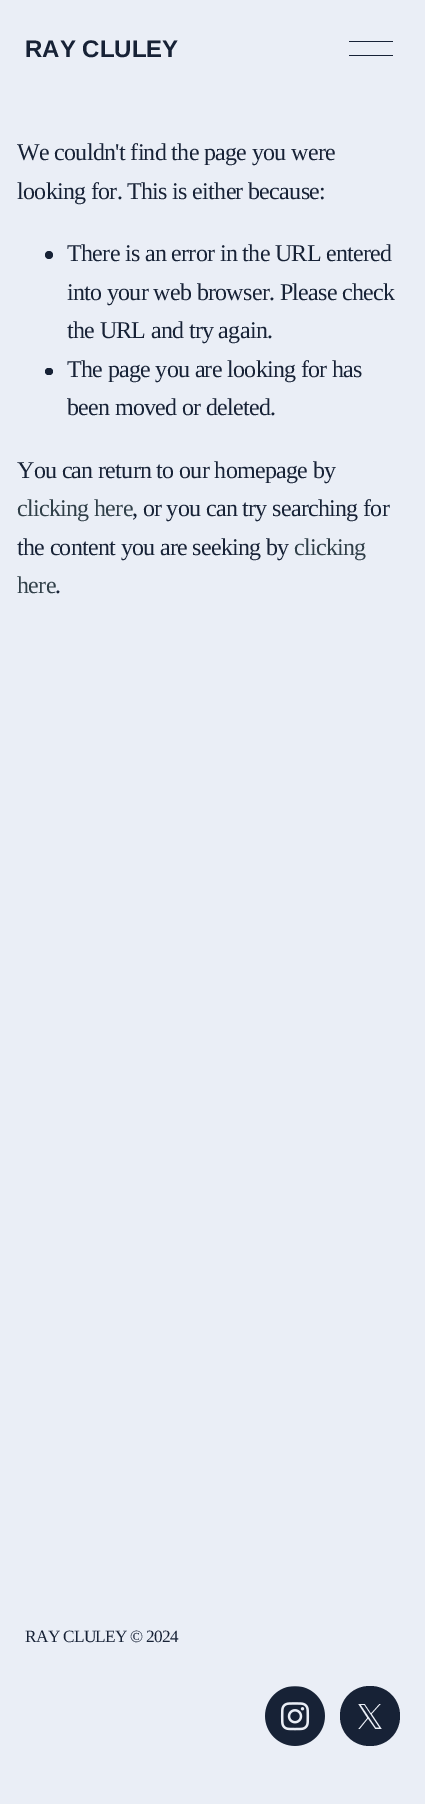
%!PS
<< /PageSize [425 1804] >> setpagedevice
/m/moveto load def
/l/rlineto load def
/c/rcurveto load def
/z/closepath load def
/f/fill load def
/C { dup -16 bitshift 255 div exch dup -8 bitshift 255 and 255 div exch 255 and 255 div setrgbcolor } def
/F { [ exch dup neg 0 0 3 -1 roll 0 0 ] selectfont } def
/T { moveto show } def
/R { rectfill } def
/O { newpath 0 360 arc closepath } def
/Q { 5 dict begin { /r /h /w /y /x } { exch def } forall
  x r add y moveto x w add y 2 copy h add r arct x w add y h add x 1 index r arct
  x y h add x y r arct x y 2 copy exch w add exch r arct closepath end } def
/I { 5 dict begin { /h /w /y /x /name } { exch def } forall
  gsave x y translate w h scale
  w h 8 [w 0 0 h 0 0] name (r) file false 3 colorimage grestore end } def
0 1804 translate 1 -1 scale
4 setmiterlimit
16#EAEEF6 C
0 0 425 1804 R
/LiberationSans-Bold 24 F
16#172236 C
(RAY CLULEY) 25 57 T
349 41 44 1 R
349 55 44 1 R
/LiberationSerif-Regular 24 F
17 160 m -.7 0 (We couldn't find the page you were) ashow
17 199 m -.7 0 (looking for. This is either because:) ashow
49 255 4 O f
67 261 m -.7 0 (There is an error in the URL entered) ashow
67 300 m -.7 0 (into your web browser. Please check) ashow
67 338 m -.7 0 (the URL and try again.) ashow
45 368 8 7 3.5 Q f
67 377 m -.7 0 (The page you are looking for has) ashow
67 415 m -.7 0 (been moved or deleted.) ashow
17 478 m -.7 0 (You can return to our homepage by) ashow
16#303F48 C
17 516 m -.7 0 (clicking here) ashow
16#172236 C
132 516 m -.7 0 (, or you can try searching for) ashow
17 555 m -.7 0 (the content you are seeking by) ashow
16#303F48 C
294 555 m -.7 0 (clicking) ashow
17 593 m -.7 0 (here) ashow
16#172236 C
55 593 m -.7 0 (.) ashow
/LiberationSerif-Regular 17.25 F
25 1642 m -.7 0 (RAY CLULEY © 2024) ashow
(1.rgb) 265 1686 60 60 I
376 1727.5 m 3 0 l -15 -22.5 l -3 0 l z f
370 1686 m 17 0 30 13 30 30 c 0 17 -13 30 -30 30 c -17 0 -30 -13 -30 -30 c 0 -17 13 -30 30 -30 c z 381 1704 m -2 0 l -8 9 l -6 -9 l -7 0 l 9 14 l -9 11 l 2 0 l 8 -10 l 7 10 l 7 0 l -10 -15 l z eofill
showpage
